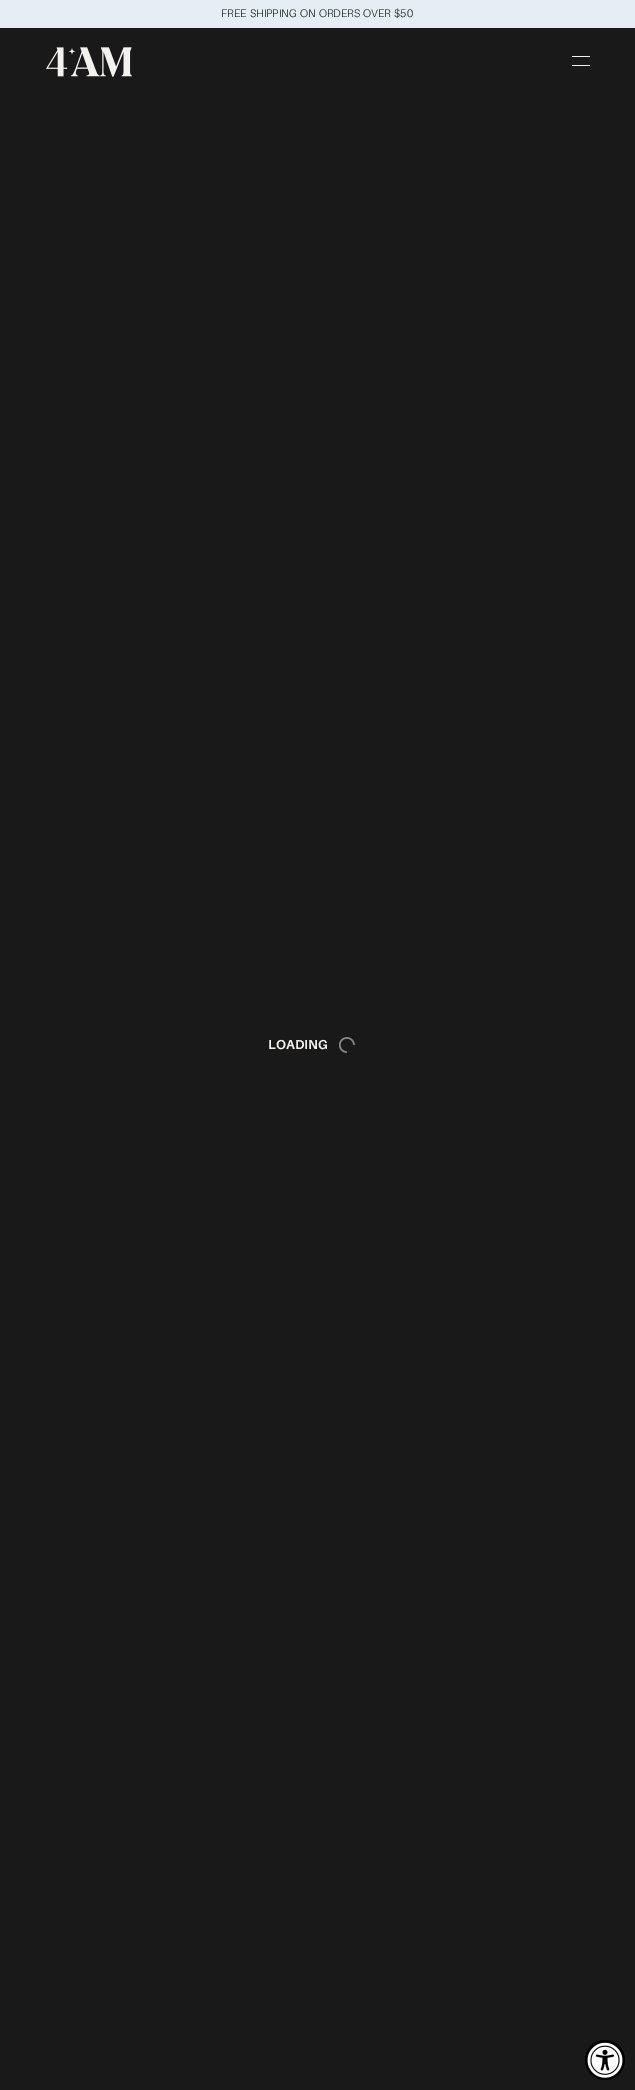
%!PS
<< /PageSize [635 2090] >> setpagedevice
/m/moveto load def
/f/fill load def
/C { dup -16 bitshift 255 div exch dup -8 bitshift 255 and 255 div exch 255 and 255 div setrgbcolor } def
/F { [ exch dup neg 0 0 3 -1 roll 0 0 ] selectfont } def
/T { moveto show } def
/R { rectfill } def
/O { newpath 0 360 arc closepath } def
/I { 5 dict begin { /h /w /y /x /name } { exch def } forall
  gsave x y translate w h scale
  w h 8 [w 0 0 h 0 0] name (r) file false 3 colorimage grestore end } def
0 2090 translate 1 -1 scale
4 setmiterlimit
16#191919 C
0 0 635 2090 R
16#E6EDF5 C
0 0 635 28 R
/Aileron-Light 11 F
16#191919 C
221 17 m 1 0 32 (FREE SHIPPING ON ORDERS OVER $50) widthshow
(1.rgb) 46 47 86 30 I
16#F4F2EF C
572 56 18 1 R
572 65 18 1 R
/Aileron-Bold 13 F
(LOADING) 268 1049 T
(2.rgb) 339 1037 16 16 I
16#000000 C
605 2060 20 O f
(3.rgb) 587 2042 36 36 I
showpage
